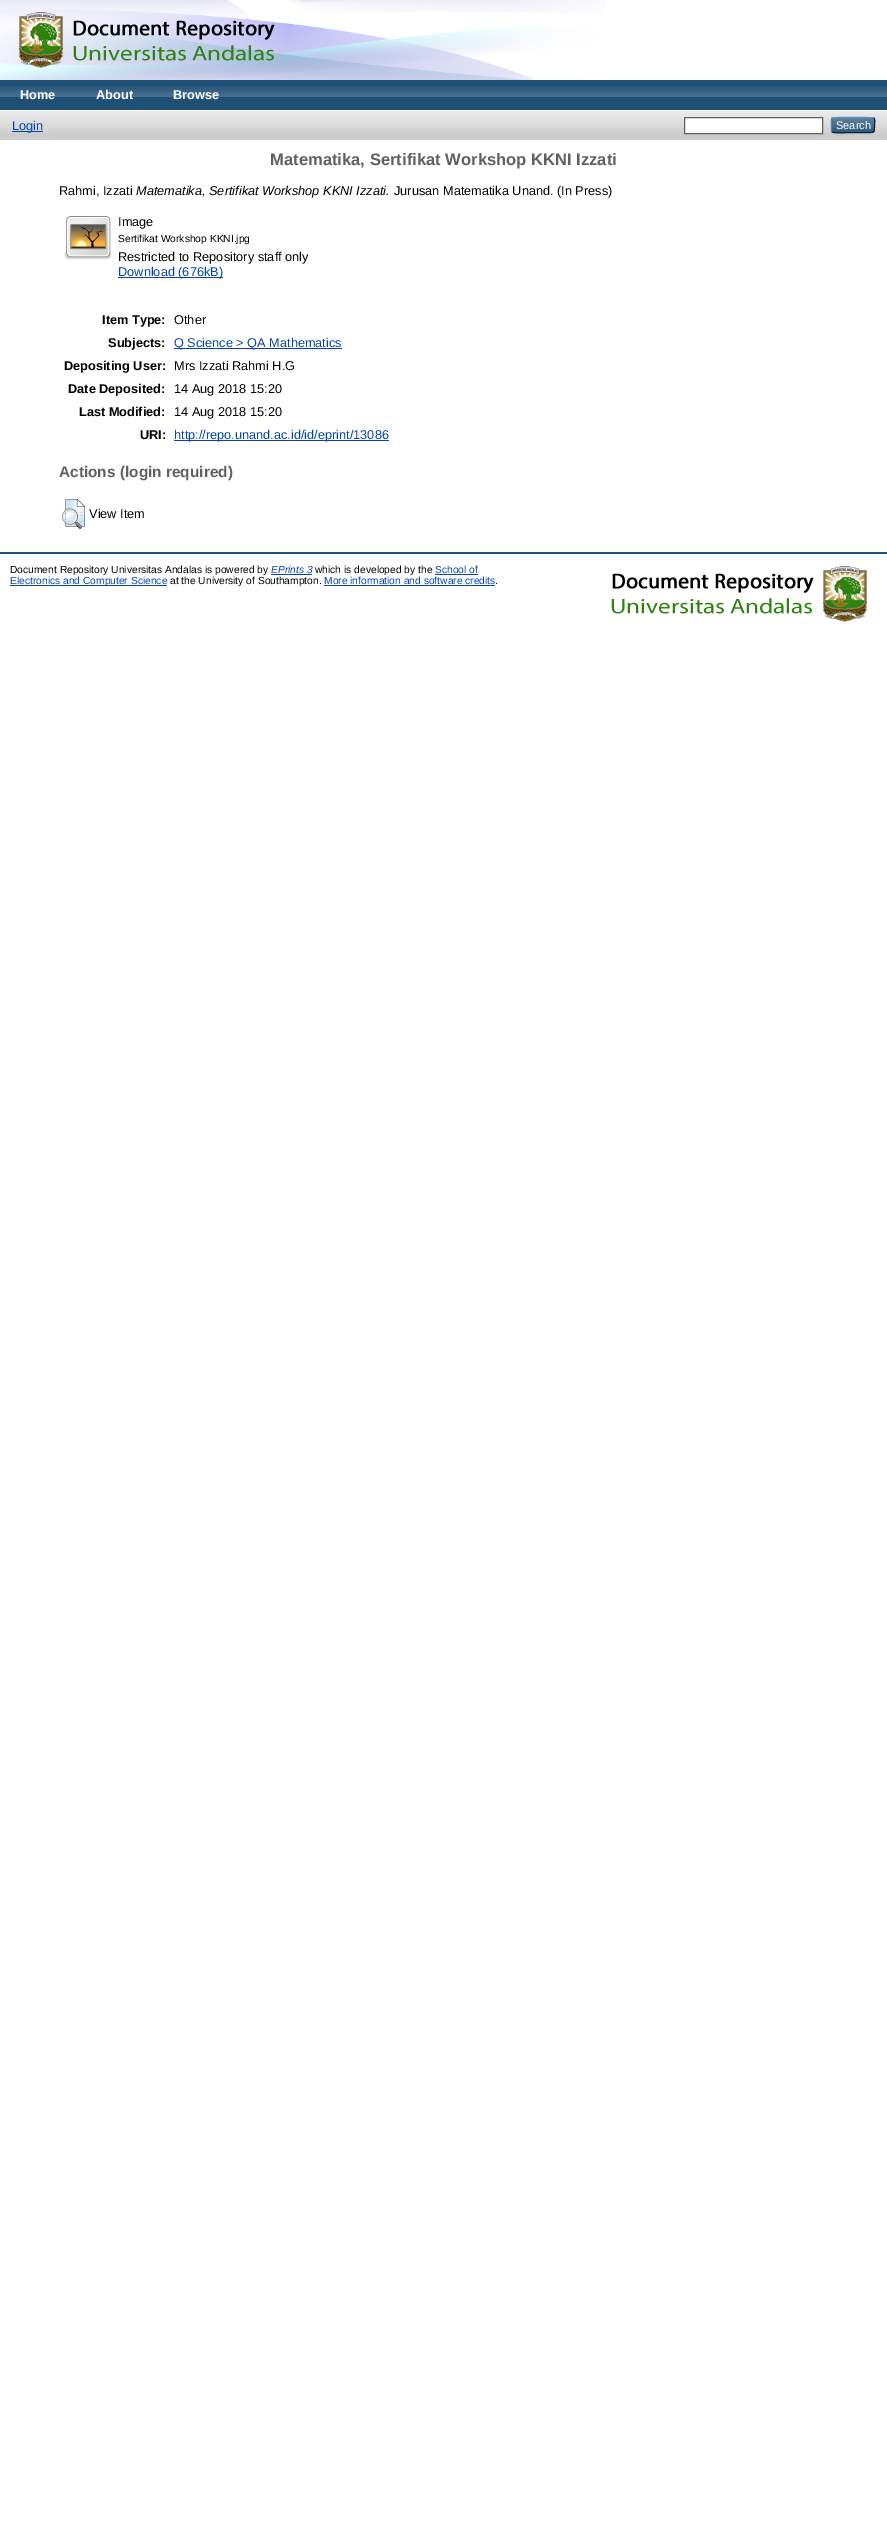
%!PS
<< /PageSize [887 2535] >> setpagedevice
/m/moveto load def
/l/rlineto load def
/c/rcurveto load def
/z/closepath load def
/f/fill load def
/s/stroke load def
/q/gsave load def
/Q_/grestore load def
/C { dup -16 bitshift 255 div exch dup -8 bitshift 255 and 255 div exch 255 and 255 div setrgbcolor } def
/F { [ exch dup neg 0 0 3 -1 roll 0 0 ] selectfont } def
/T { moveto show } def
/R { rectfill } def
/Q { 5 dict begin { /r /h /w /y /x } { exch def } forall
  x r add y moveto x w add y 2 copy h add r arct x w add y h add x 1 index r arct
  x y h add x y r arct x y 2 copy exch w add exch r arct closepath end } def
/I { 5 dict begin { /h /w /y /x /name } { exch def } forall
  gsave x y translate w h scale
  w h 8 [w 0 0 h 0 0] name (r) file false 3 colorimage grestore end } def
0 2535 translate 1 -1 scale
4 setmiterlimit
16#FFFFFF C
0 0 887 2535 R
(1.rgb) 0 0 605 80 I
(2.rgb) 19 12 256 56 I
16#204F76 C
0 80 887 30 R
(3.rgb) 0 86 887 11 I
/LiberationSans-Bold 12.75 F
16#FFFFFF C
(Home) 20 99 T
(About) 96 99 T
(Browse) 173 99 T
16#CCCCCC C
0 111 887 29 R
(4.rgb) 0 111 887 22 I
16#0645AD C
12 131 31 1 R
/LiberationSans-Regular 12.75 F
(Login) 12 130 T
16#FFFFFF C
684.5 117.5 m 138 0 l 0 16 l -138 0 l z q f Q_
16#606060 C
s
16#1F4F76 C
831 117 44 16 3 Q f
(5.rgb) 831 117 44 16 I
16#5B97C7 C
832 118 m 1.5 -1 40.5 -1 42 0 c s
16#0D2131 C
874 118 m 1.5 2 .5 5 .5 7 c 0 8.5 .5 7.5 -9 7.5 c -12.5 0 l -3 0 -19 1 -21 -.5 c s
16#5287B3 C
832 132 m -1 -1.5 -.5 -5.5 -.5 -7 c 0 -1.5 -.5 -5.5 .5 -7 c s
/LiberationSans-Regular 11 F
16#FFFFFF C
(Search) 836 129 T
/LiberationSans-Bold 16.6 F
16#606060 C
(Matematika, Sertifikat Workshop KKNI Izzati) 270 165 T
/LiberationSans-Regular 12.75 F
16#000000 C
(Rahmi, Izzati) 59 195 T
/LiberationSans-Italic 12.75 F
(Matematika, Sertifikat Workshop KKNI Izzati.) 136 195 T
/LiberationSans-Regular 12.75 F
(Jurusan Matematika Unand. \(In Press\)) 394 195 T
(6.rgb) 64 216 48 44 I
(Image) 118 226 T
/LiberationSans-Regular 10.25 F
(Sertifikat Workshop KKNI.jpg) 118 242 T
/LiberationSans-Regular 12.75 F
(Restricted to Repository staff only) 118 261 T
16#0645AD C
118 277 105 1 R
(Download \(676kB\)) 118 276 T
/LiberationSans-Bold 12.75 F
16#000000 C
(Item Type:) 102 324 T
/LiberationSans-Regular 12.75 F
(Other) 174 324 T
/LiberationSans-Bold 12.75 F
(Subjects:) 108 347 T
16#0645AD C
174 348 168 1 R
/LiberationSans-Regular 12.75 F
(Q Science > QA Mathematics) 174 347 T
/LiberationSans-Bold 12.75 F
16#000000 C
(Depositing User:) 64 370 T
/LiberationSans-Regular 12.75 F
(Mrs Izzati Rahmi H.G) 174 370 T
/LiberationSans-Bold 12.75 F
(Date Deposited:) 68 393 T
/LiberationSans-Regular 12.75 F
(14 Aug 2018 15:20) 174 393 T
/LiberationSans-Bold 12.75 F
(Last Modified:) 79 416 T
/LiberationSans-Regular 12.75 F
(14 Aug 2018 15:20) 174 416 T
/LiberationSans-Bold 12.75 F
(URI:) 140 439 T
16#0645AD C
174 440 215 1 R
/LiberationSans-Regular 12.75 F
(http://repo.unand.ac.id/id/eprint/13086) 174 439 T
/LiberationSans-Bold 15.4 F
16#606060 C
(Actions \(login required\)) 59 477 T
(7.rgb) 62 499 23 30 I
/LiberationSans-Regular 12.75 F
16#000000 C
(View Item) 89 518 T
16#204F76 C
0 552 887 2 R
/LiberationSans-Regular 10.25 F
16#000000 C
(Document Repository Universitas Andalas is powered by) 10 573 T
/LiberationSans-Italic 10.25 F
16#0645AD C
(EPrints 3) 271 573 T
271 574 41 1 R
/LiberationSans-Regular 10.25 F
16#000000 C
(which is developed by the) 315 573 T
16#0645AD C
(School of) 435 573 T
435 574 43 1 R
10 585 157 1 R
(Electronics and Computer Science) 10 584 T
16#000000 C
(at the University of Southampton.) 170 584 T
16#0645AD C
(More information and software credits) 324 584 T
324 585 171 1 R
16#000000 C
(.) 495 584 T
(8.rgb) 611 566 256 56 I
showpage
